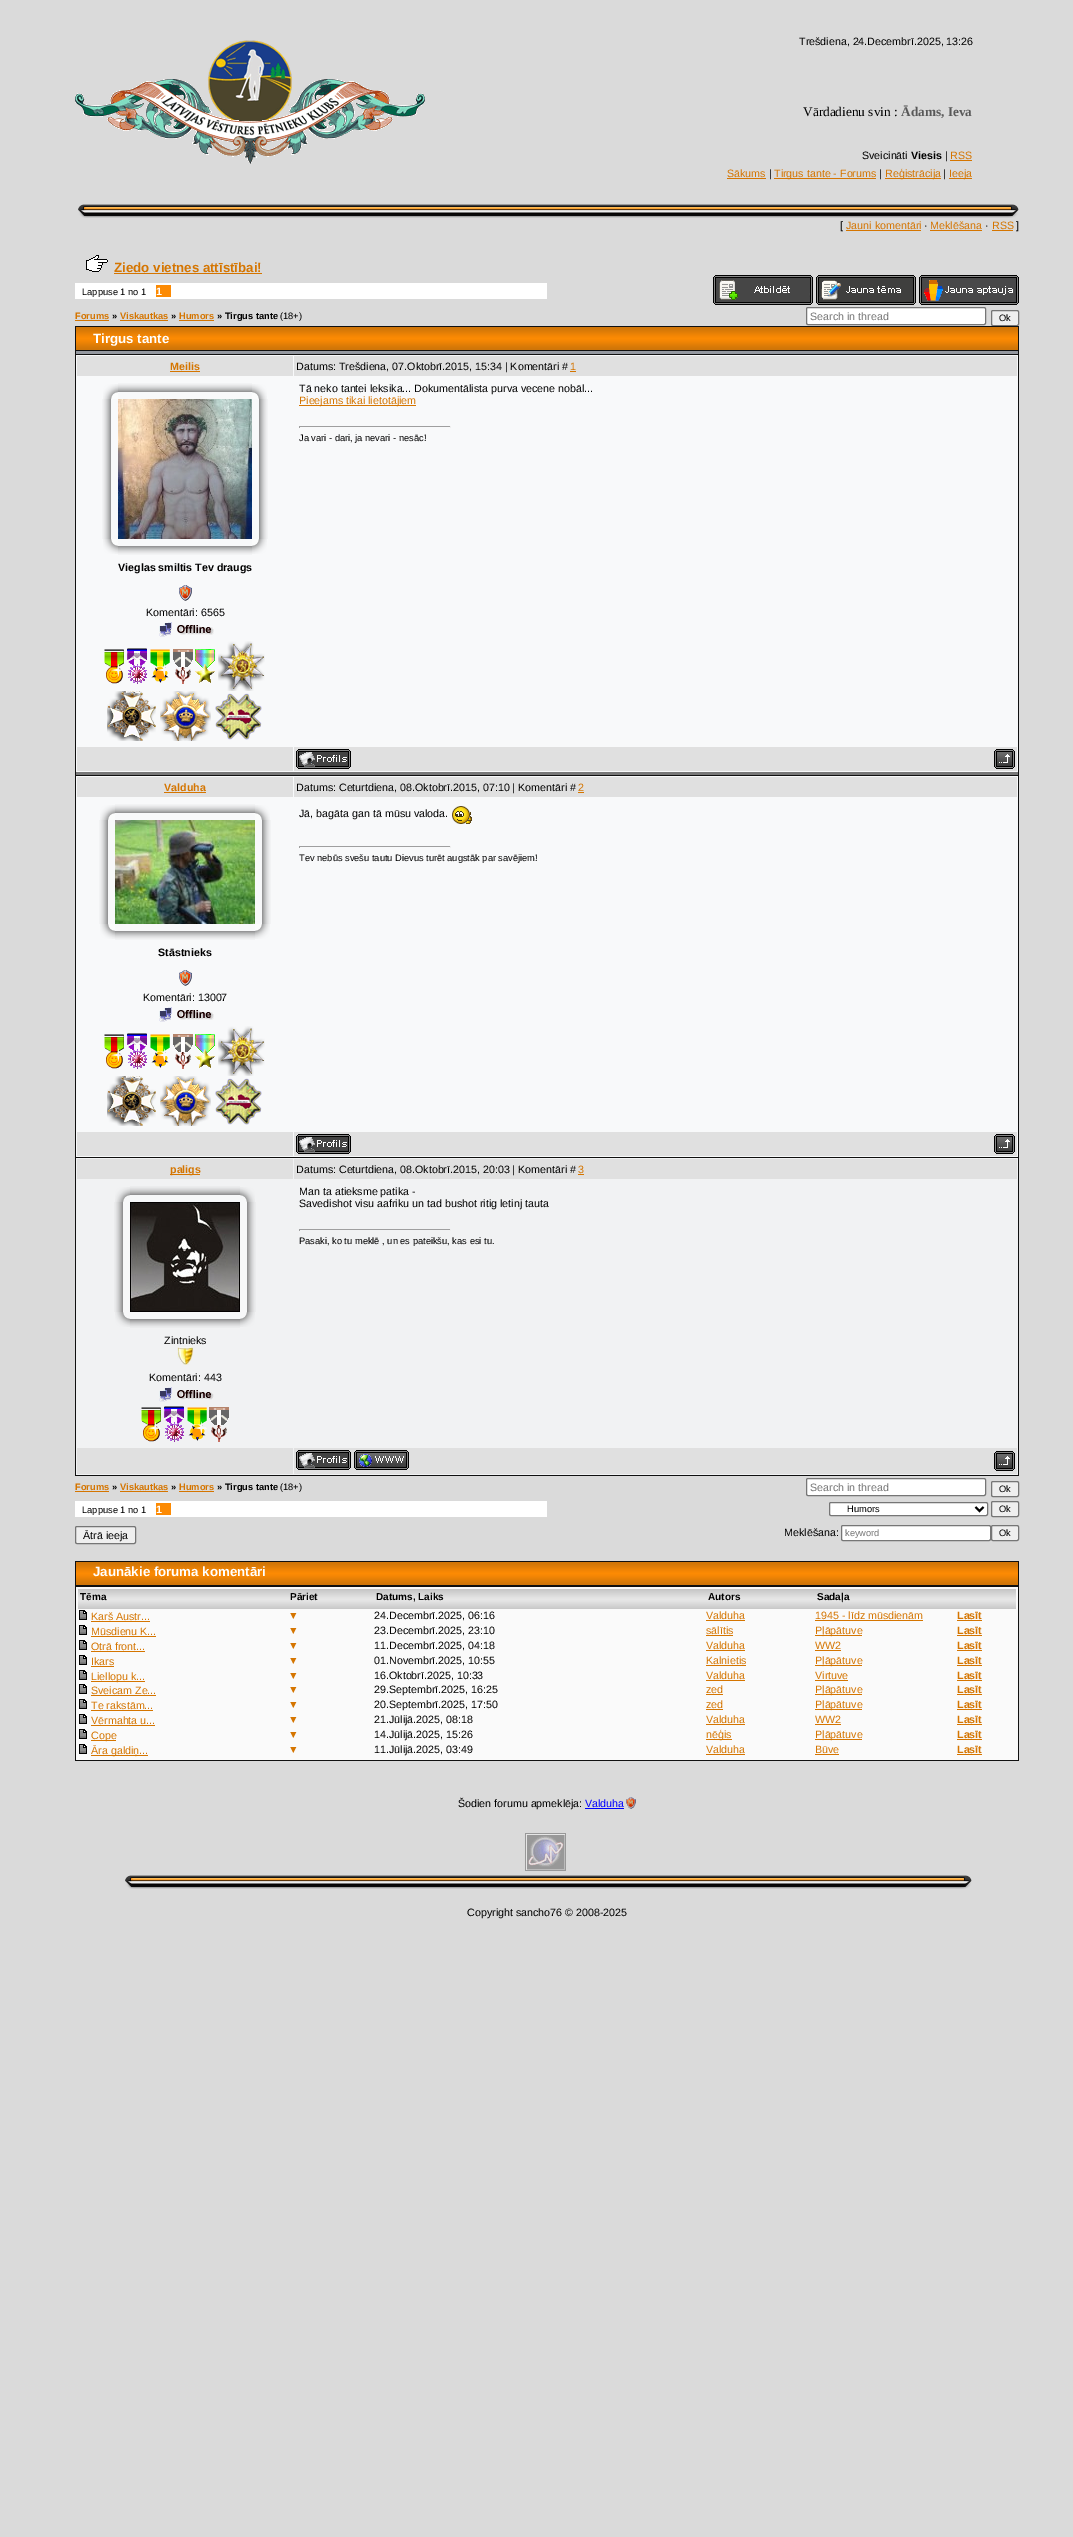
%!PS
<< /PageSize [1073 2537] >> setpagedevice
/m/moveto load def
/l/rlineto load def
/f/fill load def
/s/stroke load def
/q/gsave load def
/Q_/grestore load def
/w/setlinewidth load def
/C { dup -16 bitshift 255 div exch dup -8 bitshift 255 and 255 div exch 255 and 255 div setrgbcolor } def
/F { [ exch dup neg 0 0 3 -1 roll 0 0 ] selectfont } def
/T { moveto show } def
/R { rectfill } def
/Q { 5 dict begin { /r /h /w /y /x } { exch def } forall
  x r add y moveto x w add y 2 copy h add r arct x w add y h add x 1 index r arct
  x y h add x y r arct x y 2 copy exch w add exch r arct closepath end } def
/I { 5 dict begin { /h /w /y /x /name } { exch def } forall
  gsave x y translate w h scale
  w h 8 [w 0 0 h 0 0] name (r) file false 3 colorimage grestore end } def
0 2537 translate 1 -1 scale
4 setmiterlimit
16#DADADA C
0 0 1073 2537 R
(1.rgb) 75 40 350 124 I
/LiberationSans-Regular 10.7 F
16#000000 C
(Trešdiena, 24.Decembrī.2025, 13:26) 799 45 T
/LiberationSerif-Regular 13.3 F
(Vārdadienu svin :) 803 116 T
/LiberationSerif-Bold 13.3 F
16#585858 C
(Ādams, Ieva) 901 116 T
/LiberationSans-Regular 10.7 F
16#000000 C
(Sveicināti) 862 159 T
/LiberationSans-Bold 10.7 F
(Viesis) 911 159 T
/LiberationSans-Regular 10.7 F
(|) 945 159 T
16#D57500 C
(RSS) 950 159 T
950 160 22 1 R
(Sākums) 727 177 T
727 178 39 1 R
16#000000 C
(|) 769 177 T
16#D57500 C
774 178 102 1 R
(Tirgus tante - Forums) 774 177 T
16#000000 C
(|) 879 177 T
16#D57500 C
885 178 56 1 R
(Reģistrācija) 885 177 T
16#000000 C
(|) 943 177 T
16#D57500 C
949 178 23 1 R
(Ieeja) 949 177 T
(2.rgb) 78 204 9 14 I
(3.rgb) 87 204 921 14 I
(4.rgb) 1008 204 11 14 I
16#000000 C
([) 840 229 T
16#D57500 C
(Jauni komentāri) 846 229 T
846 230 75 1 R
16#000000 C
(·) 924 229 T
16#D57500 C
(Meklēšana) 930 229 T
930 230 52 1 R
16#000000 C
(·) 985 229 T
16#D57500 C
(RSS) 992 229 T
992 230 21 1 R
16#000000 C
(]) 1016 229 T
(5.rgb) 86 255 22 17 I
/LiberationSans-Bold 13.3 F
16#D57500 C
(Ziedo vietnes attīstībai!) 114 272 T
114 273 148 1 R
16#FFFFFF C
75 283 472 16 R
/LiberationSans-Regular 9.3 F
16#000000 C
(Lappuse 1 no 1) 82 295 T
16#FC8A03 C
156 285 15 12 R
/LiberationSans-Bold 10.7 F
16#FFFFFF C
(1) 156 295 T
(6.rgb) 713 275 100 30 I
(7.rgb) 816 275 100 30 I
(8.rgb) 919 275 100 30 I
/LiberationSans-Bold 9.3 F
16#D57500 C
(Forums) 75 319 T
75 320 34 1 R
16#000000 C
(») 112 319 T
16#D57500 C
(Viskautkas) 120 319 T
120 320 48 1 R
16#000000 C
(») 171 319 T
16#D57500 C
(Humors) 179 319 T
179 320 35 1 R
16#000000 C
(» Tirgus tante) 217 319 T
/LiberationSans-Regular 9.3 F
(\(18+\)) 280 319 T
16#FFFFFF C
806.5 307.5 179 17 1.5 Q q f Q_
16#767676 C
s
/LiberationSans-Regular 10.7 F
16#757575 C
(Search in thread) 810 320 T
16#EFEFEF C
991.5 310.5 27 15 1.5 Q q f Q_
16#767676 C
s
/LiberationSans-Regular 9.3 F
16#000000 C
(Ok) 999 321 T
16#101010 C
75 326 944 1150 R
(9.rgb) 76 327 942 23 I
/LiberationSans-Bold 13.3 F
16#FFFFFF C
(Tirgus tante) 93 343 T
16#9498A0 C
76 351 942 3 R
16#F8F9FA C
76 355 942 417 R
16#787878 C
76 772 942 3 R
16#E0E0E0 C
77 356 216 20 R
/LiberationSans-Bold 10.7 F
16#D57500 C
(Meilis) 170 370 T
170 371 30 1 R
16#E0E0E0 C
294 356 723 20 R
/LiberationSans-Regular 10.7 F
16#000000 C
(Datums: Trešdiena, 07.Oktobrī.2015, 15:34 | Komentāri #) 296 370 T
16#D57500 C
(1) 570 370 T
570 371 6 1 R
16#000000 C
(Tā neko tantei leksika... Dokumentālista purva vecene nobāl...) 299 392 T
16#D57500 C
299 405 117 1 R
(Pieejams tikai lietotājiem) 299 404 T
16#9F9F9F C
299 426 152 1 R
16#EEEEEE C
450 426 1 2 R
16#9F9F9F C
299 426 1 2 R
/LiberationSans-Regular 9.3 F
16#000000 C
(Ja vari - dari, ja nevari - nesāc!) 299 441 T
(10.rgb) 103 384 15 15 I
(11.rgb) 118 383 134 9 I
(12.rgb) 252 384 15 15 I
(13.rgb) 102 399 9 140 I
(14.rgb) 118 399 134 140 I
(15.rgb) 259 399 9 140 I
(16.rgb) 103 539 15 15 I
(17.rgb) 118 546 134 9 I
(18.rgb) 252 539 15 15 I
/LiberationSans-Bold 10.7 F
(Vieglas smiltis Tev draugs) 118 571 T
(19.rgb) 179 585 13 16 I
/LiberationSans-Regular 10.7 F
(Komentāri: 6565) 146 616 T
(20.rgb) 159 622 55 15 I
(21.rgb) 104 649 20 35 I
(22.rgb) 127 648 20 36 I
(23.rgb) 150 649 20 34 I
(24.rgb) 173 649 20 35 I
(25.rgb) 195 649 20 34 I
(26.rgb) 218 641 47 50 I
(27.rgb) 107 691 49 50 I
(28.rgb) 160 691 51 50 I
(29.rgb) 215 693 47 47 I
16#E0E0E0 C
77 747 216 24 R
294 747 723 24 R
(30.rgb) 296 749 55 20 I
(31.rgb) 994 749 21 20 I
16#F8F9FA C
76 776 942 381 R
16#E0E0E0 C
77 777 216 20 R
/LiberationSans-Bold 10.7 F
16#D57500 C
(Valduha) 164 791 T
164 792 42 1 R
16#E0E0E0 C
294 777 723 20 R
/LiberationSans-Regular 10.7 F
16#000000 C
(Datums: Ceturtdiena, 08.Oktobrī.2015, 07:10 | Komentāri #) 296 791 T
16#D57500 C
(2) 578 791 T
578 792 6 1 R
16#000000 C
(Jā, bagāta gan tā mūsu valoda.) 299 817 T
(32.rgb) 452 806 20 18 I
16#9F9F9F C
299 846 152 1 R
16#EEEEEE C
450 846 1 2 R
16#9F9F9F C
299 846 1 2 R
/LiberationSans-Regular 9.3 F
16#000000 C
(Tev nebūs svešu tautu Dievus turēt augstāk par savējiem!) 299 861 T
(10.rgb) 100 805 15 15 I
(33.rgb) 115 804 140 9 I
(12.rgb) 255 805 15 15 I
(34.rgb) 99 820 9 104 I
(35.rgb) 115 820 140 104 I
(36.rgb) 262 820 9 104 I
(16.rgb) 100 924 15 15 I
(37.rgb) 115 931 140 9 I
(18.rgb) 255 924 15 15 I
/LiberationSans-Bold 10.7 F
(Stāstnieks) 158 956 T
(19.rgb) 179 970 13 16 I
/LiberationSans-Regular 10.7 F
(Komentāri: 13007) 143 1001 T
(20.rgb) 159 1007 55 15 I
(21.rgb) 104 1034 20 35 I
(22.rgb) 127 1033 20 36 I
(23.rgb) 150 1034 20 34 I
(24.rgb) 173 1034 20 35 I
(25.rgb) 195 1034 20 34 I
(26.rgb) 218 1026 47 50 I
(27.rgb) 107 1076 49 50 I
(28.rgb) 160 1076 51 50 I
(29.rgb) 215 1078 47 47 I
16#E0E0E0 C
77 1132 216 24 R
294 1132 723 24 R
(30.rgb) 296 1134 55 20 I
(31.rgb) 994 1134 21 20 I
16#F1F2F3 C
76 1158 942 317 R
16#E0E0E0 C
77 1159 216 20 R
16#D57500 C
170 1174 30 1 R
/LiberationSans-Bold 10.7 F
(paligs) 170 1173 T
16#E0E0E0 C
294 1159 723 20 R
/LiberationSans-Regular 10.7 F
16#000000 C
(Datums: Ceturtdiena, 08.Oktobrī.2015, 20:03 | Komentāri #) 296 1173 T
16#D57500 C
(3) 578 1173 T
578 1174 6 1 R
16#000000 C
(Man ta atieksme patika -) 299 1195 T
(Savedishot visu aafriku un tad bushot ritig letinj tauta) 299 1207 T
16#9F9F9F C
299 1229 152 1 R
16#EEEEEE C
450 1229 1 2 R
16#9F9F9F C
299 1229 1 2 R
/LiberationSans-Regular 9.3 F
16#000000 C
(Pasaki, ko tu meklē , un es pateikšu, kas esi tu.) 299 1244 T
(38.rgb) 115 1187 15 15 I
(39.rgb) 130 1186 110 16 I
(40.rgb) 240 1187 15 15 I
(41.rgb) 114 1202 16 110 I
(42.rgb) 130 1202 110 110 I
(43.rgb) 240 1202 16 110 I
(44.rgb) 115 1312 15 15 I
(45.rgb) 130 1312 110 16 I
(46.rgb) 240 1312 15 15 I
/LiberationSans-Regular 10.7 F
(Zintnieks) 164 1344 T
(47.rgb) 177 1347 17 18 I
(Komentāri: 443) 149 1381 T
(48.rgb) 159 1387 55 15 I
(49.rgb) 141 1407 20 35 I
(50.rgb) 164 1406 20 36 I
(51.rgb) 187 1407 20 34 I
(52.rgb) 209 1407 20 35 I
16#E0E0E0 C
77 1448 216 26 R
294 1448 723 26 R
(30.rgb) 296 1450 55 20 I
(53.rgb) 354 1450 55 20 I
(31.rgb) 994 1451 21 20 I
/LiberationSans-Bold 9.3 F
16#D57500 C
(Forums) 75 1490 T
75 1491 34 1 R
16#000000 C
(») 112 1490 T
16#D57500 C
(Viskautkas) 120 1490 T
120 1491 48 1 R
16#000000 C
(») 171 1490 T
16#D57500 C
(Humors) 179 1490 T
179 1491 35 1 R
16#000000 C
(» Tirgus tante) 217 1490 T
/LiberationSans-Regular 9.3 F
(\(18+\)) 280 1490 T
16#FFFFFF C
806.5 1478.5 179 17 1.5 Q q f Q_
16#767676 C
s
/LiberationSans-Regular 10.7 F
16#757575 C
(Search in thread) 810 1491 T
16#EFEFEF C
991.5 1481.5 27 15 1.5 Q q f Q_
16#767676 C
s
/LiberationSans-Regular 9.3 F
16#000000 C
(Ok) 999 1492 T
16#FFFFFF C
75 1501 472 16 R
16#000000 C
(Lappuse 1 no 1) 82 1513 T
16#FC8A03 C
156 1503 15 12 R
/LiberationSans-Bold 10.7 F
16#FFFFFF C
(1) 156 1513 T
829.5 1502.5 158 13 1.5 Q q f Q_
16#767676 C
s
16#000000 C
2 w
975.5 1507 m 4 4 l 4 -4 l s
/LiberationSans-Regular 9.3 F
(Humors) 847 1512 T
16#EFEFEF C
991.5 1501.5 27 15 1.5 Q q f Q_
16#767676 C
1 w
s
16#000000 C
(Ok) 999 1512 T
16#EFEFEF C
75.5 1526.5 60 17 1.5 Q q f Q_
16#767676 C
s
/LiberationSans-Regular 10.7 F
16#000000 C
(Ātrā ieeja) 83 1539 T
(Meklēšana:) 784 1536 T
16#FFFFFF C
841.5 1525.5 149 15 1.5 Q q f Q_
16#767676 C
s
/LiberationSans-Regular 9.3 F
16#757575 C
(keyword) 845 1536 T
16#EFEFEF C
991.5 1525.5 27 15 1.5 Q q f Q_
16#767676 C
s
16#000000 C
(Ok) 999 1536 T
16#101010 C
75 1561 944 200 R
(9.rgb) 76 1562 942 23 I
/LiberationSans-Bold 13.3 F
16#FFFFFF C
(Jaunākie foruma komentāri) 93 1576 T
16#FAFAFA C
76 1587 942 173 R
(54.rgb) 78 1589 210 20 I
/LiberationSans-Bold 10 F
16#000000 C
(Tēma) 80 1600 T
(55.rgb) 288 1589 86 20 I
(Pāriet) 290 1600 T
(56.rgb) 374 1589 332 20 I
(Datums, Laiks) 376 1600 T
(57.rgb) 706 1589 109 20 I
(Аutors) 708 1600 T
(58.rgb) 815 1589 108 20 I
(Sadaļa) 817 1600 T
(59.rgb) 923 1589 93 20 I
(60.rgb) 79 1610 8 10 I
/LiberationSans-Regular 10.7 F
16#D57500 C
(Karš Austr...) 91 1620 T
91 1621 59 1 R
(▼) 288 1619 T
16#000000 C
(24.Decembrī.2025, 06:16) 374 1619 T
16#D57500 C
(Valduha) 706 1619 T
706 1620 39 1 R
(1945 - līdz mūsdienām) 815 1619 T
815 1620 108 1 R
/LiberationSans-Bold 10.7 F
(Lasīt) 957 1619 T
957 1620 25 1 R
(60.rgb) 79 1625 8 10 I
/LiberationSans-Regular 10.7 F
(Mūsdienu K...) 91 1635 T
91 1636 65 1 R
(▼) 288 1634 T
16#000000 C
(23.Decembrī.2025, 23:10) 374 1634 T
16#D57500 C
(sālītis) 706 1634 T
706 1635 27 1 R
815 1635 47 1 R
(Pļāpātuve) 815 1634 T
/LiberationSans-Bold 10.7 F
(Lasīt) 957 1634 T
957 1635 25 1 R
(60.rgb) 79 1640 8 10 I
/LiberationSans-Regular 10.7 F
(Otrā front...) 91 1650 T
91 1651 54 1 R
(▼) 288 1649 T
16#000000 C
(11.Decembrī.2025, 04:18) 374 1649 T
16#D57500 C
(Valduha) 706 1649 T
706 1650 39 1 R
(WW2) 815 1649 T
815 1650 26 1 R
/LiberationSans-Bold 10.7 F
(Lasīt) 957 1649 T
957 1650 25 1 R
(60.rgb) 79 1655 8 10 I
/LiberationSans-Regular 10.7 F
(Ikars) 91 1665 T
91 1666 23 1 R
(▼) 288 1664 T
16#000000 C
(01.Novembrī.2025, 10:55) 374 1664 T
16#D57500 C
(Kalnietis) 706 1664 T
706 1665 40 1 R
815 1665 47 1 R
(Pļāpātuve) 815 1664 T
/LiberationSans-Bold 10.7 F
(Lasīt) 957 1664 T
957 1665 25 1 R
(60.rgb) 79 1670 8 10 I
91 1681 54 1 R
/LiberationSans-Regular 10.7 F
(Liellopu k...) 91 1680 T
(▼) 288 1679 T
16#000000 C
(16.Oktobrī.2025, 10:33) 374 1679 T
16#D57500 C
(Valduha) 706 1679 T
706 1680 39 1 R
(Virtuve) 815 1679 T
815 1680 33 1 R
/LiberationSans-Bold 10.7 F
(Lasīt) 957 1679 T
957 1680 25 1 R
(60.rgb) 79 1684 8 10 I
/LiberationSans-Regular 10.7 F
(Sveicam Ze...) 91 1694 T
91 1695 65 1 R
(▼) 288 1693 T
16#000000 C
(29.Septembrī.2025, 16:25) 374 1693 T
16#D57500 C
(zed) 706 1693 T
706 1694 17 1 R
815 1694 47 1 R
(Pļāpātuve) 815 1693 T
/LiberationSans-Bold 10.7 F
(Lasīt) 957 1693 T
957 1694 25 1 R
(60.rgb) 79 1699 8 10 I
/LiberationSans-Regular 10.7 F
(Te rakstām...) 91 1709 T
91 1710 62 1 R
(▼) 288 1708 T
16#000000 C
(20.Septembrī.2025, 17:50) 374 1708 T
16#D57500 C
(zed) 706 1708 T
706 1709 17 1 R
815 1709 47 1 R
(Pļāpātuve) 815 1708 T
/LiberationSans-Bold 10.7 F
(Lasīt) 957 1708 T
957 1709 25 1 R
(60.rgb) 79 1714 8 10 I
/LiberationSans-Regular 10.7 F
(Vērmahta u...) 91 1724 T
91 1725 64 1 R
(▼) 288 1723 T
16#000000 C
(21.Jūlijā.2025, 08:18) 374 1723 T
16#D57500 C
(Valduha) 706 1723 T
706 1724 39 1 R
(WW2) 815 1723 T
815 1724 26 1 R
/LiberationSans-Bold 10.7 F
(Lasīt) 957 1723 T
957 1724 25 1 R
(60.rgb) 79 1729 8 10 I
91 1740 25 1 R
/LiberationSans-Regular 10.7 F
(Cope) 91 1739 T
(▼) 288 1738 T
16#000000 C
(14.Jūlijā.2025, 15:26) 374 1738 T
16#D57500 C
706 1739 26 1 R
(nēģis) 706 1738 T
815 1739 47 1 R
(Pļāpātuve) 815 1738 T
/LiberationSans-Bold 10.7 F
(Lasīt) 957 1738 T
957 1739 25 1 R
(60.rgb) 79 1744 8 10 I
91 1755 57 1 R
/LiberationSans-Regular 10.7 F
(Āra galdiņ...) 91 1754 T
(▼) 288 1753 T
16#000000 C
(11.Jūlijā.2025, 03:49) 374 1753 T
16#D57500 C
(Valduha) 706 1753 T
706 1754 39 1 R
(Būve) 815 1753 T
815 1754 24 1 R
/LiberationSans-Bold 10.7 F
(Lasīt) 957 1753 T
957 1754 25 1 R
/LiberationSans-Regular 10.7 F
16#000000 C
(Šodien forumu apmeklēja:) 458 1807 T
16#0000FF C
(Valduha) 585 1807 T
585 1808 39 1 R
(61.rgb) 626 1797 10 12 I
(62.rgb) 525 1833 41 38 I
(2.rgb) 125 1875 9 14 I
(63.rgb) 134 1875 827 14 I
(4.rgb) 961 1875 11 14 I
16#000000 C
(Copyright sancho76 © 2008-2025) 467 1916 T
showpage
